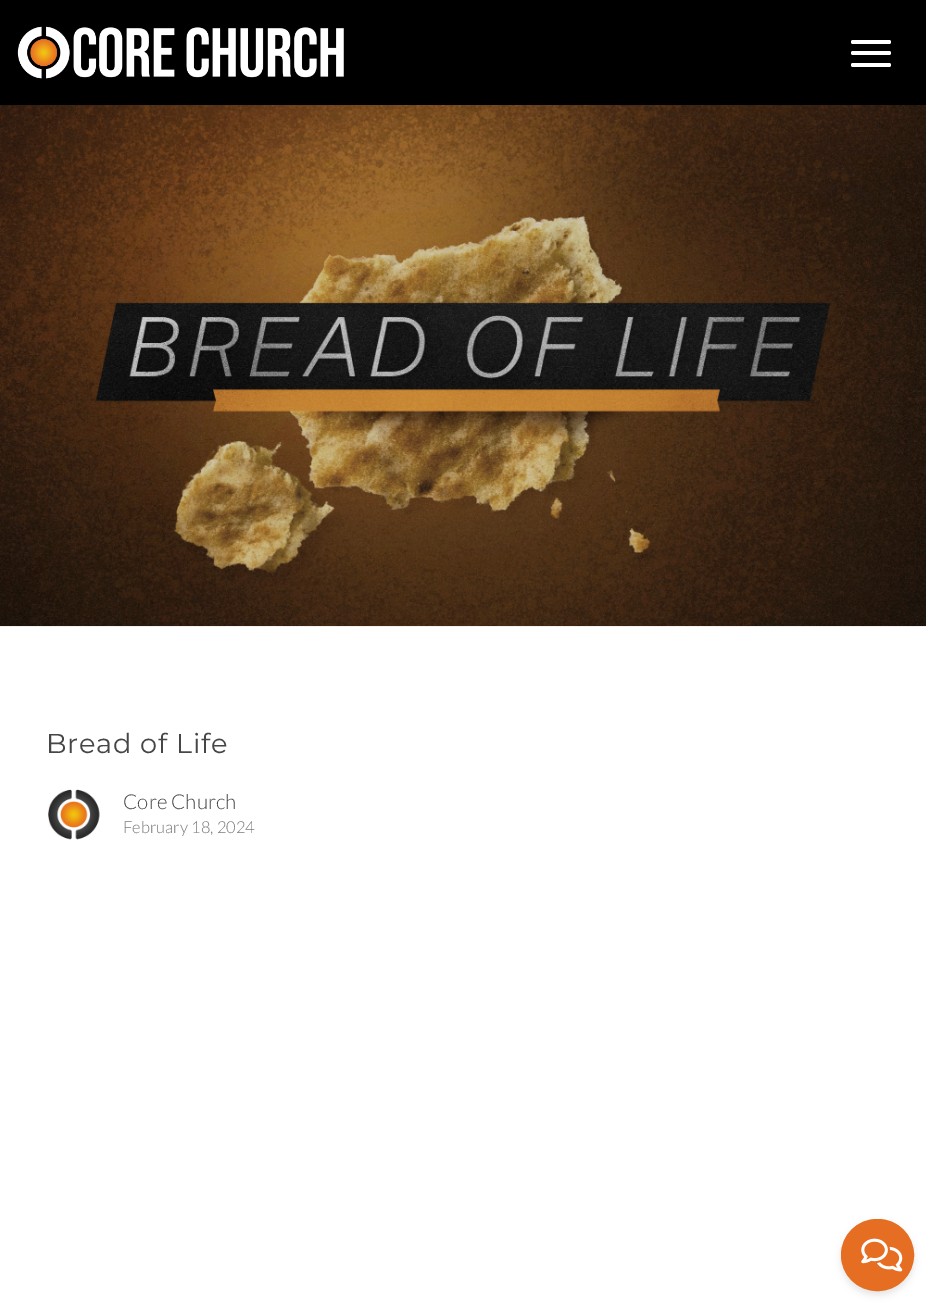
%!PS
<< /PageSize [926 1308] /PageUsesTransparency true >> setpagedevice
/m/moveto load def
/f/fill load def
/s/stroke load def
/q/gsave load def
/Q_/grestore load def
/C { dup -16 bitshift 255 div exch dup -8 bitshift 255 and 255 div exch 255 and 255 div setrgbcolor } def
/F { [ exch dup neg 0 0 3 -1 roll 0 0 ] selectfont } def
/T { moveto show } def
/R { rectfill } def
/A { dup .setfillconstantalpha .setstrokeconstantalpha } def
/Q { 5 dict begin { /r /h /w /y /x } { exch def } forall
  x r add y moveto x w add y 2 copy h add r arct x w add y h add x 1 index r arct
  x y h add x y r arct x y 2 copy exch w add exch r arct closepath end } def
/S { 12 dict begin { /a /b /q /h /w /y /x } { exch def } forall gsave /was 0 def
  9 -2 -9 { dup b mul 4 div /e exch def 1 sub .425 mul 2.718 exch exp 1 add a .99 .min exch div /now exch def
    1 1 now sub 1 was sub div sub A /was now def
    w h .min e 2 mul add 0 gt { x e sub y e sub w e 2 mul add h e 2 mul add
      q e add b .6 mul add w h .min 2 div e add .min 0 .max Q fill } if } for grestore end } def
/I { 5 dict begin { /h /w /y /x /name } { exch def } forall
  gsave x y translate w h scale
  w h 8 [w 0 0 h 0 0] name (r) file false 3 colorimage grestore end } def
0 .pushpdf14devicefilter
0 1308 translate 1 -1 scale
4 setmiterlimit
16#FFFFFF C
0 0 926 1308 R
16#000000 C
0 0 926 105 R
(1.rgb) 17 26 327 53 I
16#FFFFFF C
851 40 40 4 2 Q f
851 51 40 4 2 Q f
851 63 40 4 2 Q f
(2.rgb) 0 105 926 522 I
/Montserrat-Regular 27.25 F
16#464646 C
46 753 m .75 0 (Bread of Life) ashow
(3.rgb) 48 789 52 51 I
/Lato-Light 20.5 F
(Core Church) 123 809 T
/Lato-Light 16.5 F
16#777777 C
(February 18, 2024) 123 833 T
16#000000 C
841 1223 73 72 36 3.5 .1 S
16#E66E22 C
841.5 1219.5 72 71 35.5 Q q f Q_
s
(4.rgb) 861 1238 42 34 I
.poppdf14devicefilter showpage
